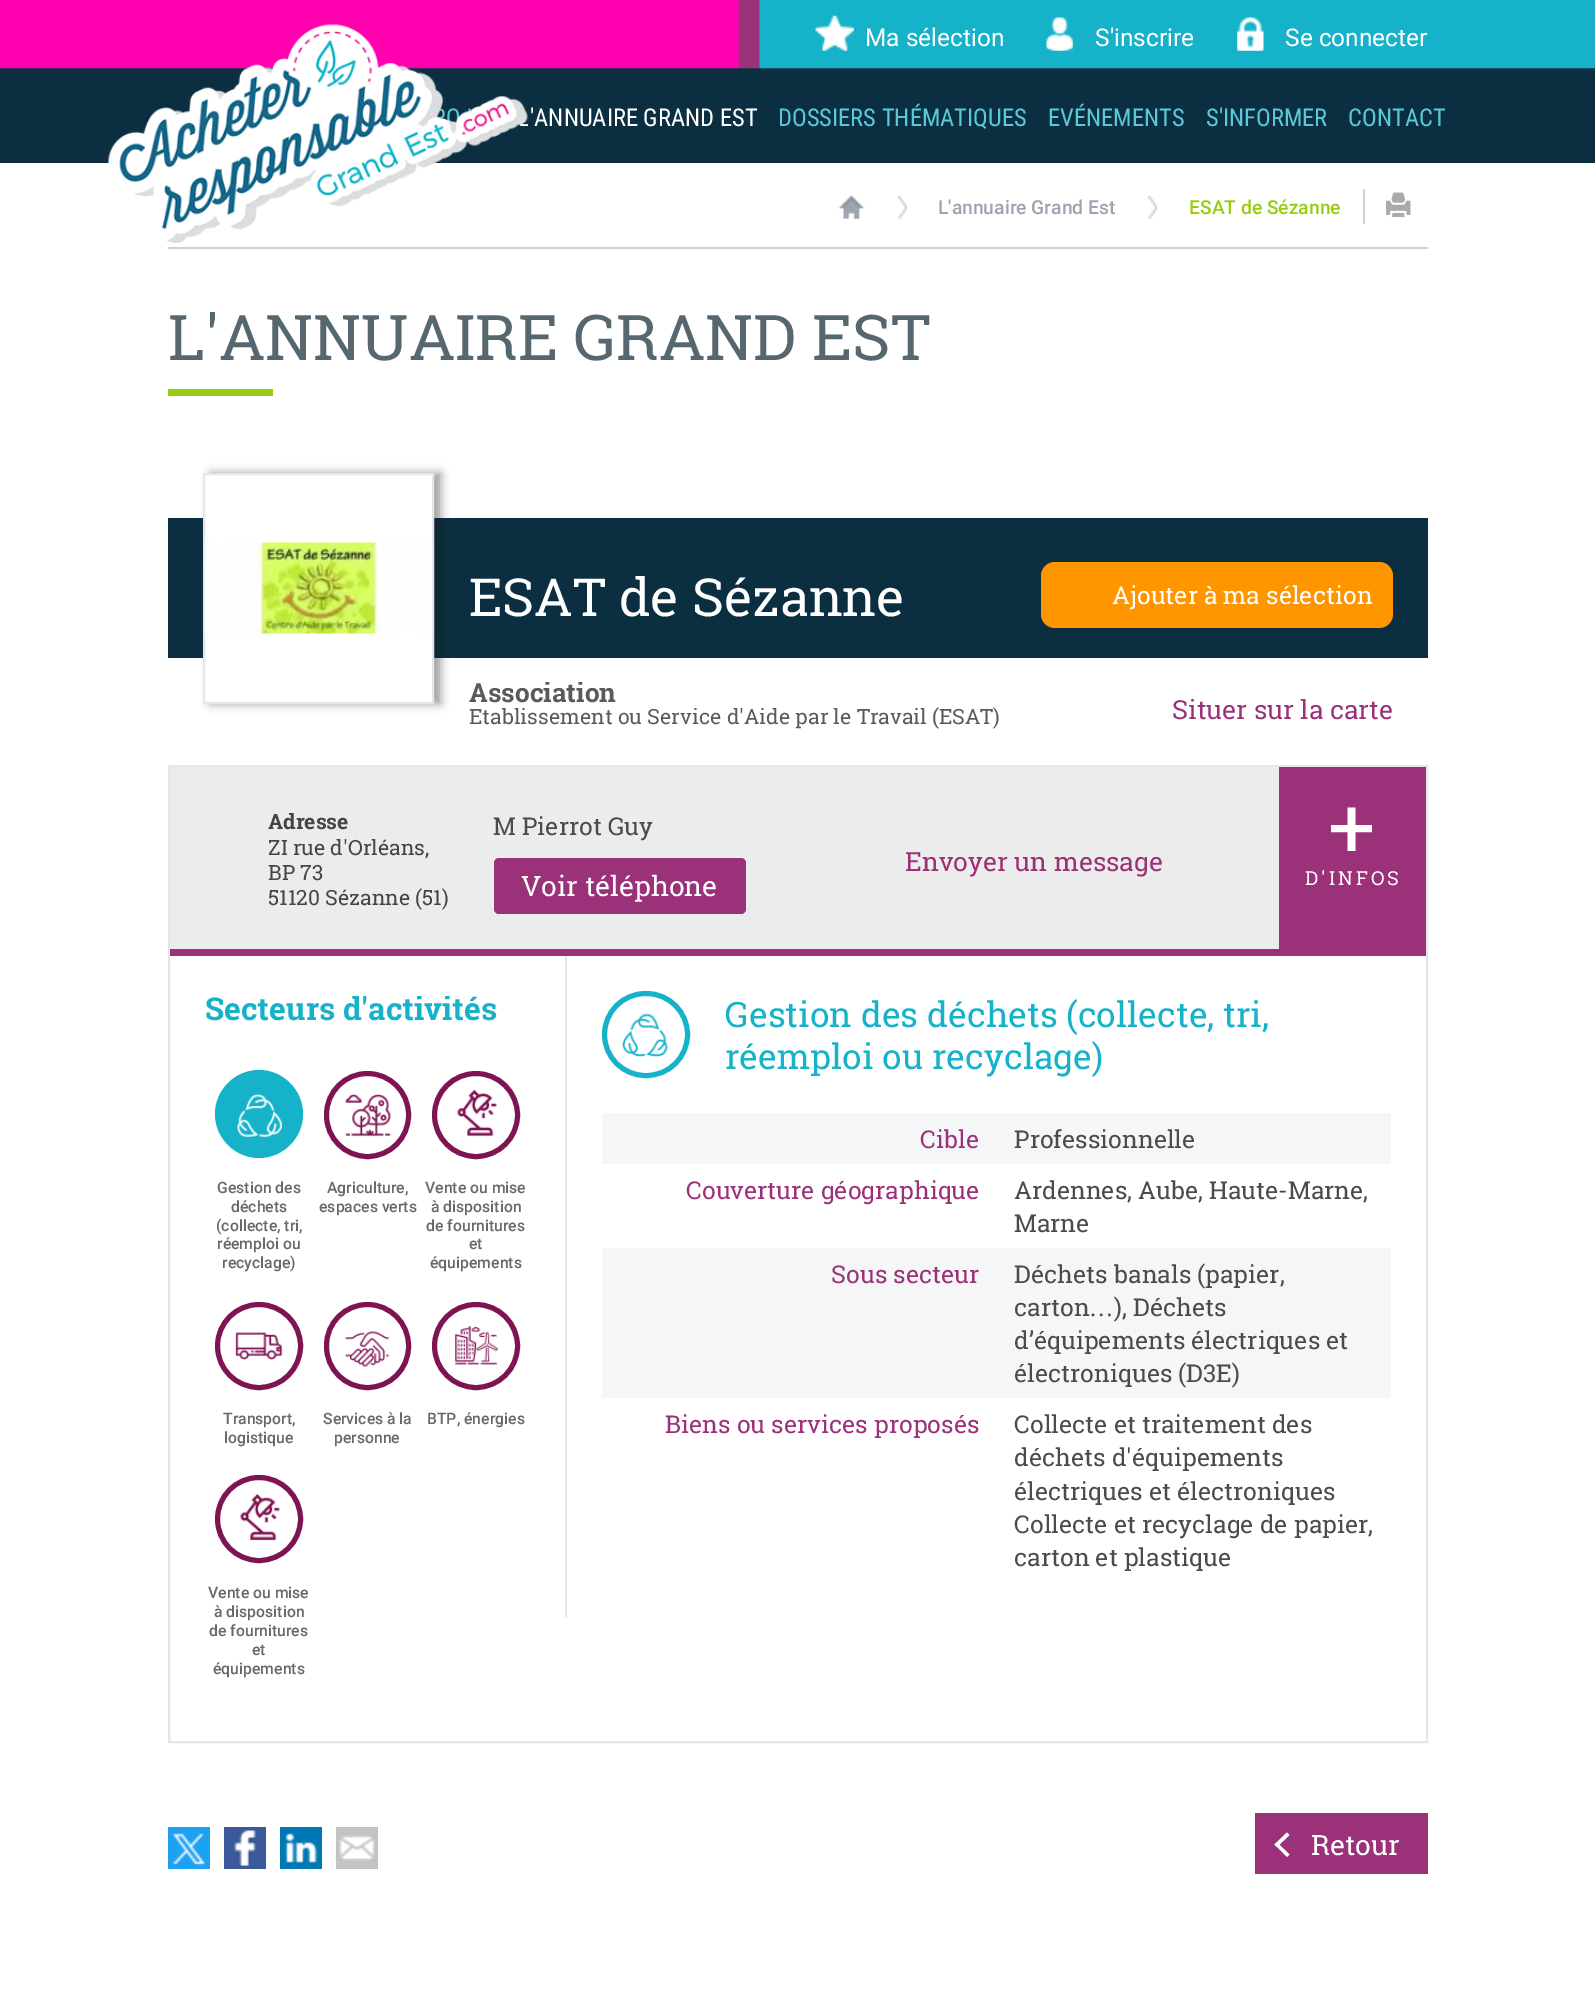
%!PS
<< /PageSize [1595 2005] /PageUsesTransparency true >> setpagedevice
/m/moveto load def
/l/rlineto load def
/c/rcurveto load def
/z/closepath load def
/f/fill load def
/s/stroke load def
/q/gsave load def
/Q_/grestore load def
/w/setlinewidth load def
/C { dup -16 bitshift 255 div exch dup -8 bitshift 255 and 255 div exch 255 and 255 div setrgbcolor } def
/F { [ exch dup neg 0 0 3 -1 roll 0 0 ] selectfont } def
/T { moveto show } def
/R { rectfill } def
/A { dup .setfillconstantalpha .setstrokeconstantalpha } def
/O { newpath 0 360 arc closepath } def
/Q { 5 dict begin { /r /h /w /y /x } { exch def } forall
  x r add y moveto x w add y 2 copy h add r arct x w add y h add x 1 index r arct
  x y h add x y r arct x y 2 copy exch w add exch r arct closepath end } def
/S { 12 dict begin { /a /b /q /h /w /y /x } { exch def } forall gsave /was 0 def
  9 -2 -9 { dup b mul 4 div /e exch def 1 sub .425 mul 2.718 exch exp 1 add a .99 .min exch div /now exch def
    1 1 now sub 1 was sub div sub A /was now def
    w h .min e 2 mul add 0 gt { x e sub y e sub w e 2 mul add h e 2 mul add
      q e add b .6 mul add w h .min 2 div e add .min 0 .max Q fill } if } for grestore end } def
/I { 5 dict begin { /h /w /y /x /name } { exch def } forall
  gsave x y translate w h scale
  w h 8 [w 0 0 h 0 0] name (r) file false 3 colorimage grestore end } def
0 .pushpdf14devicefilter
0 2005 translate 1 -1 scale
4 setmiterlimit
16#FFFFFF C
0 0 1595 2005 R
16#0B2E40 C
0 68 1595 95 R
(1.rgb) 0 0 1595 69 I
(2.rgb) 108 24 420 220 I
(3.rgb) 815 15 39 36 I
/Roboto-Regular 24.5 F
16#FFFFFF C
(Ma sélection) 865 46 T
(4.rgb) 1046 17 27 34 I
(S'inscrire) 1095 46 T
(5.rgb) 1237 17 27 34 I
(Se connecter) 1285 46 T
/RobotoCondensed-Regular 24.5 F
('ANNUAIRE GRAND EST) 530 126 T
16#59C9D9 C
(DOSSIERS THÉMATIQUES) 778 126 T
(EVÉNEMENTS) 1048 126 T
(S'INFORMER) 1206 126 T
(CONTACT) 1348 126 T
16#CDD1D7 C
168 247 1260 2 R
(6.rgb) 838 195 27 24 I
(7.rgb) 897 195 10 24 I
/Roboto-Medium 19.25 F
16#9BA4B0 C
(L'annuaire Grand Est) 938 214 T
(8.rgb) 1147 195 11 24 I
16#99CB11 C
(ESAT de Sézanne) 1189 214 T
16#CDD1D7 C
1363 189 2 35 R
(9.rgb) 1386 192 25 25 I
/RobotoSlab-Regular 63 F
16#576770 C
(L'ANNUAIRE GRAND EST) 168 360 T
16#99CB11 C
168 389 105 7 R
16#0B2E40 C
168 518 1260 140 R
16#181818 C
210 473 231 231 0 4.5 .4 S
16#FFFFFF C
204 474 m 229 0 l 0 229 l -229 0 l z q f Q_
16#E6E6E6 C
2 w
s
(10.rgb) 204 542 229 92 I
/RobotoSlab-Regular 52.5 F
16#FFFFFF C
(ESAT de Sézanne) 469 616 T
16#FF9600 C
1041 562 352 66 14 Q f
/RobotoSlab-Regular 24.5 F
16#FFFFFF C
(Ajouter à ma sélection) 1112 604 T
/RobotoSlab-Bold 26.25 F
16#5A5A5A C
(Association) 469 702 T
/RobotoSlab-Regular 21 F
(Etablissement ou Service d'Aide par le Travail \(ESAT\)) 469 724 T
/RobotoSlab-Regular 26.25 F
16#9B3179 C
(Situer sur la carte) 1172 719 T
16#E6E6E6 C
169 766 1258 976 rectstroke
16#ECECEC C
170 767 1109 182 R
16#9B3179 C
170 949 1256 7 R
/RobotoSlab-Bold 21 F
16#444444 C
(Adresse) 268 829 T
/RobotoSlab-Regular 21 F
(ZI rue d'Orléans,) 268 855 T
(BP 73) 268 880 T
(51120 Sézanne \(51\)) 268 905 T
/RobotoSlab-Regular 24.5 F
16#4B4B4B C
(M Pierrot Guy) 493 835 T
16#9B3179 C
494 858 252 56 5 Q f
/RobotoSlab-Regular 28 F
16#FFFFFF C
(Voir téléphone) 521 896 T
/RobotoSlab-Regular 26.25 F
16#9B3179 C
(Envoyer un message) 905 871 T
1279 767 147 182 R
/RobotoSlab-Regular 84 F
16#FFFFFF C
1328 857 m 3 0 (+) ashow
/RobotoSlab-Regular 19.25 F
1305 885 m 3 0 (D'INFOS) ashow
/RobotoSlab-Bold 31.5 F
16#15B2CA C
(Secteurs d'activités) 205 1020 T
259 1070 m -24 0 -44 20 -44 44 c 0 24 20 44 44 44 c 24 0 44 -20 44 -44 c 0 -24 -20 -44 -44 -44 c z f
(11.rgb) 237 1094 46 44 I
/Roboto-Medium 15.75 F
16#696969 C
(Gestion des) 217 1193 T
(déchets) 231 1212 T
(\(collecte, tri,) 216 1231 T
(réemploi ou) 217 1249 T
(recyclage\)) 222 1268 T
(12.rgb) 345 1094 46 43 I
16#7F1452 C
5 w
326.5 1073.5 82 83 41 Q s
16#696969 C
(Agriculture,) 327 1193 T
(espaces verts) 319 1212 T
(13.rgb) 457 1089 40 48 I
16#7F1452 C
476 1115 41.5 O s
16#696969 C
(Vente ou mise) 425 1193 T
(à disposition) 431 1212 T
(de fournitures) 426 1231 T
(et) 469 1249 T
(équipements) 430 1268 T
(14.rgb) 235 1332 48 28 I
16#7F1452 C
259 1346 41.5 O s
16#696969 C
(Transport,) 223 1424 T
(logistique) 224 1443 T
(15.rgb) 345 1331 45 36 I
16#7F1452 C
326.5 1304.5 82 83 41 Q s
16#696969 C
(Services à la) 323 1424 T
(personne) 334 1443 T
(16.rgb) 455 1326 43 39 I
16#7F1452 C
476 1346 41.5 O s
16#696969 C
(BTP, énergies) 427 1424 T
(17.rgb) 240 1493 40 48 I
16#7F1452 C
259 1519 41.5 O s
16#696969 C
(Vente ou mise) 208 1598 T
(à disposition) 214 1617 T
(de fournitures) 209 1636 T
(et) 252 1655 T
(équipements) 213 1674 T
16#E6E6E6 C
565 956 2 661 R
(18.rgb) 622 1013 46 45 I
16#15B2CA C
604.5 993.5 83 82 41 Q s
/RobotoSlab-Regular 35 F
(Gestion des déchets \(collecte, tri,) 725 1027 T
(réemploi ou recyclage\)) 725 1069 T
16#F5F6F7 C
602 1113 789 51 R
/RobotoSlab-Regular 24.5 F
16#9B3179 C
(Cible) 920 1148 T
16#4B4B4B C
(Professionnelle) 1014 1148 T
16#9B3179 C
(Couverture géographique) 686 1199 T
16#4B4B4B C
(Ardennes, Aube, Haute-Marne,) 1014 1199 T
(Marne) 1014 1232 T
16#F5F6F7 C
602 1248 789 150 R
16#9B3179 C
(Sous secteur) 831 1283 T
16#4B4B4B C
(Déchets banals \(papier,) 1014 1283 T
(carton) 1014 1316 T
/LiberationSerif-Regular 24.5 F
(…) 1089 1316 T
/RobotoSlab-Regular 24.5 F
(\), Déchets) 1114 1316 T
(d’équipements électriques et) 1014 1349 T
(électroniques \(D3E\)) 1014 1382 T
16#9B3179 C
(Biens ou services proposés) 665 1433 T
16#4B4B4B C
(Collecte et traitement des) 1014 1433 T
(déchets d'équipements) 1014 1466 T
(électriques et électroniques) 1014 1500 T
(Collecte et recyclage de papier,) 1014 1533 T
(carton et plastique) 1014 1566 T
16#9B3179 C
1255 1813 173 61 R
16#FFFFFF C
1274.5 1844.5 m 12.5 -12 l 2.5 2.5 l -12.5 12 l z f
1274.5 1844.5 m 2.5 -2 l 12.5 12 l -2.5 2.5 l z f
/RobotoSlab-Regular 28 F
(Retour) 1311 1855 T
16#1DA1F2 C
168 1827 42 42 R
(19.rgb) 172 1833 34 32 I
16#3B5998 C
224 1827 42 42 R
(20.rgb) 234 1830 22 37 I
16#0077B5 C
280 1827 42 42 R
(21.rgb) 285 1833 33 30 I
16#C3C3C3 C
336 1827 42 42 R
(22.rgb) 339 1835 36 26 I
.poppdf14devicefilter showpage
